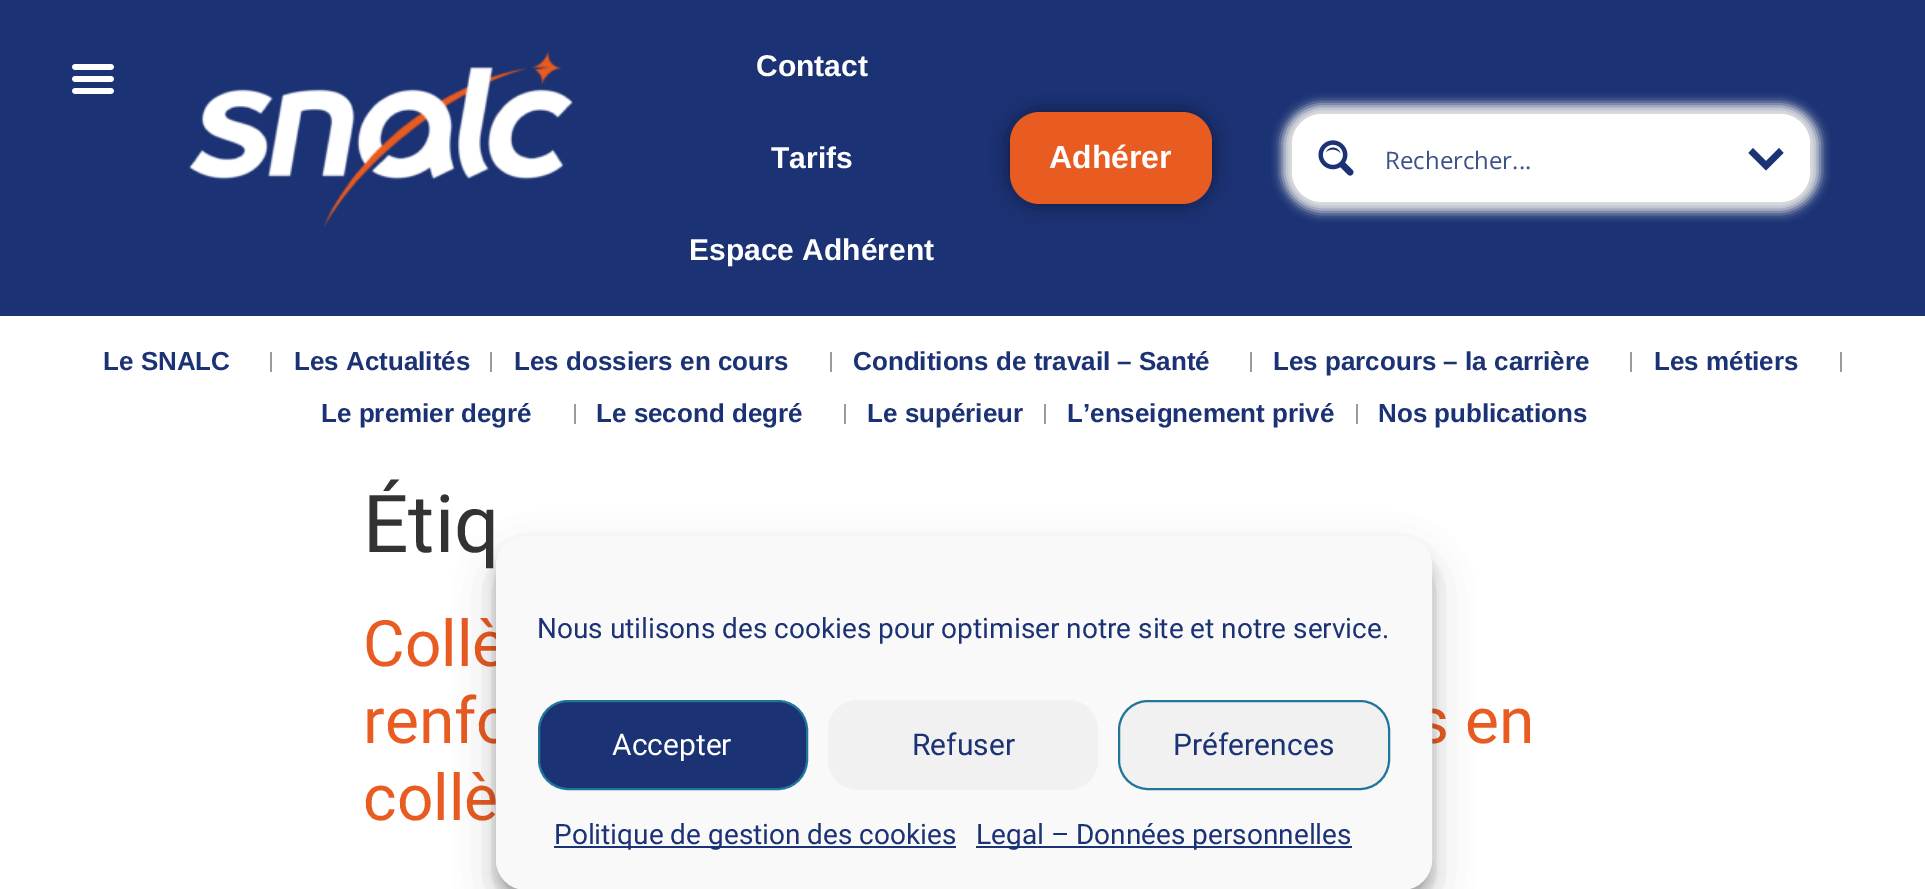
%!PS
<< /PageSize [1925 889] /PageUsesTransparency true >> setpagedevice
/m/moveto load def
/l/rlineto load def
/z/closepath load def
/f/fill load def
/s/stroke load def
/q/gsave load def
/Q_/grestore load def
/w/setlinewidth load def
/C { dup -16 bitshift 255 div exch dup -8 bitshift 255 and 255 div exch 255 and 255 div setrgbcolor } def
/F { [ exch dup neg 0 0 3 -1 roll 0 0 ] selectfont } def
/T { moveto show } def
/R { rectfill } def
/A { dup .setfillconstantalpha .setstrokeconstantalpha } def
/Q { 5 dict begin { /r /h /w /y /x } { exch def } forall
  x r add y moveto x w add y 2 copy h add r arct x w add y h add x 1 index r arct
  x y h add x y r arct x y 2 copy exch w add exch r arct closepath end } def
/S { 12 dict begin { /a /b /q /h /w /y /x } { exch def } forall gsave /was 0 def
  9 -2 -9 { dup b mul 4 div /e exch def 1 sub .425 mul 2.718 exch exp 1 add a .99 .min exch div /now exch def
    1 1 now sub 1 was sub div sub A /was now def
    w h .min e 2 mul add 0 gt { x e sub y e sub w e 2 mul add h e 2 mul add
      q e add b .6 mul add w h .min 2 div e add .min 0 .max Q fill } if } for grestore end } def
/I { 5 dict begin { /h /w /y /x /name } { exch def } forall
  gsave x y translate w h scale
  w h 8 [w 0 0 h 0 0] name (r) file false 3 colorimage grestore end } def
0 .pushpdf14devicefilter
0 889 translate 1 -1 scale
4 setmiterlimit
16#FFFFFF C
0 0 1925 889 R
16#1B3274 C
0 0 1925 316 R
(1.rgb) 72 64 42 30 I
(2.rgb) 189 50 384 178 I
/LiberationSans-Bold 30 F
16#FFFFFF C
(Contact) 756 76 T
(Tarifs) 771 168 T
(Espace Adhérent) 689 260 T
16#000000 C
1010 112 202 92 30 10 .5 S
16#E85B21 C
1010 112 202 92 30 Q f
/LiberationSans-Bold 32 F
16#FFFFFF C
(Adhérer) 1049 168 T
16#E4E4E4 C
1282 104 538 108 40 5 1 S
16#FFFFFF C
1292 114 518 88 30 Q f
(3.rgb) 1318 140 36 36 I
/OpenSans-Regular 24 F
16#3D5189 C
(Rechercher...) 1385 169 T
16#1B3274 C
1779 148 m 4.5 5 l -17.5 17.5 l -17.5 -17.5 l 4.5 -5 l 13 13 l z f
/LiberationSans-Bold 26 F
(Le SNALC) 103 370 T
16#9C9B9B C
270 352 2 20 R
16#1B3274 C
(Les Actualités) 294 370 T
16#9C9B9B C
490 352 2 20 R
16#1B3274 C
(Les dossiers en cours) 514 370 T
16#9C9B9B C
830 352 2 20 R
16#1B3274 C
(Conditions de travail – Santé) 853 370 T
16#9C9B9B C
1250 352 2 20 R
16#1B3274 C
(Les parcours – la carrière) 1273 370 T
16#9C9B9B C
1630 352 2 20 R
16#1B3274 C
(Les métiers) 1654 370 T
16#9C9B9B C
1840 352 2 20 R
16#1B3274 C
(Le premier degré) 321 422 T
16#9C9B9B C
574 404 2 20 R
16#1B3274 C
(Le second degré) 596 422 T
16#9C9B9B C
844 404 2 20 R
16#1B3274 C
(Le supérieur) 867 422 T
16#9C9B9B C
1044 404 2 20 R
16#1B3274 C
(L’enseignement privé) 1067 422 T
16#9C9B9B C
1356 404 2 20 R
16#1B3274 C
(Nos publications) 1378 422 T
/Roboto-Regular 80 F
16#333333 C
(Étiq) 363 552 T
/Roboto-Regular 64 F
16#E85B21 C
(Collè) 363 666 T
(renfo) 363 743 T
(s en) 1416 743 T
(collè) 363 820 T
16#000000 C
496 548 936 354 30 6 .23 S
496 556 936 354 30 20 .19 S
16#F9F9F9 C
497 537 934 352 29 Q q f Q_
2 w
s
/Roboto-Regular 28 F
16#1B3274 C
(Nous utilisons des cookies pour optimiser notre site et notre service.) 537 638 T
539 701 268 88 29 Q q f Q_
16#21759B C
s
/Roboto-Regular 30 F
16#FFFFFF C
(Accepter) 612 755 T
16#F1F1F1 C
828 700 270 90 30 Q f
16#1B3274 C
(Refuser) 912 755 T
16#F1F1F1 C
1119 701 270 88 29 Q q f Q_
16#21759B C
s
16#1B3274 C
(Préferences) 1173 755 T
554 846 402 2 R
/Roboto-Regular 28 F
(Politique de gestion des cookies) 554 844 T
976 846 376 2 R
(Legal – Données personnelles) 976 844 T
.poppdf14devicefilter showpage
